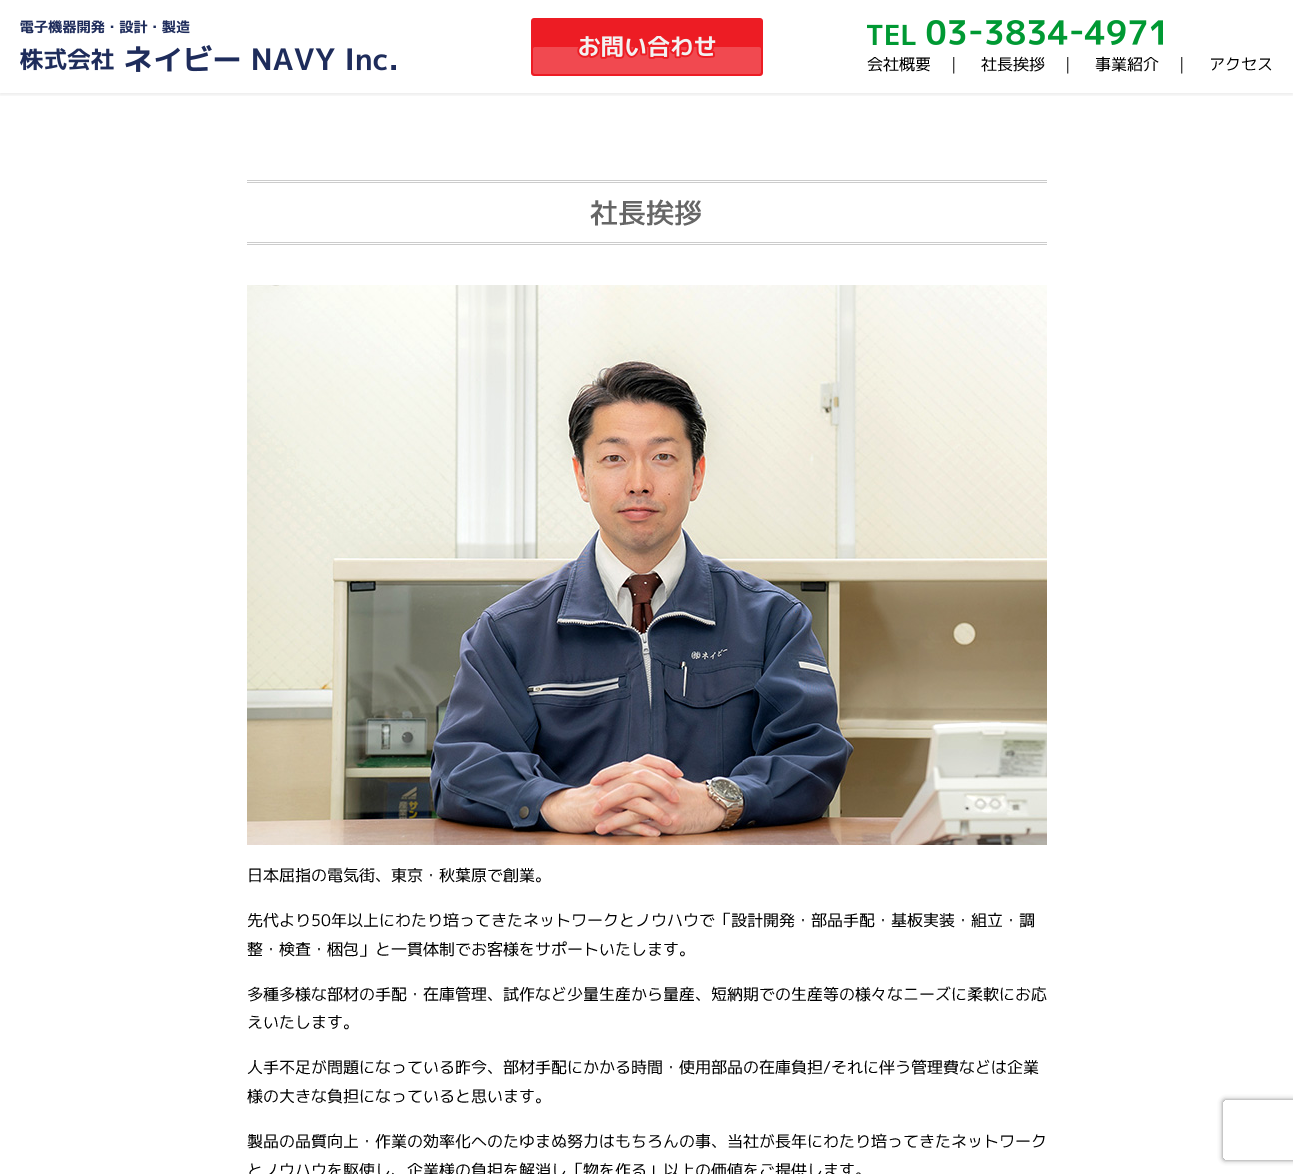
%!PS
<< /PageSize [1293 1174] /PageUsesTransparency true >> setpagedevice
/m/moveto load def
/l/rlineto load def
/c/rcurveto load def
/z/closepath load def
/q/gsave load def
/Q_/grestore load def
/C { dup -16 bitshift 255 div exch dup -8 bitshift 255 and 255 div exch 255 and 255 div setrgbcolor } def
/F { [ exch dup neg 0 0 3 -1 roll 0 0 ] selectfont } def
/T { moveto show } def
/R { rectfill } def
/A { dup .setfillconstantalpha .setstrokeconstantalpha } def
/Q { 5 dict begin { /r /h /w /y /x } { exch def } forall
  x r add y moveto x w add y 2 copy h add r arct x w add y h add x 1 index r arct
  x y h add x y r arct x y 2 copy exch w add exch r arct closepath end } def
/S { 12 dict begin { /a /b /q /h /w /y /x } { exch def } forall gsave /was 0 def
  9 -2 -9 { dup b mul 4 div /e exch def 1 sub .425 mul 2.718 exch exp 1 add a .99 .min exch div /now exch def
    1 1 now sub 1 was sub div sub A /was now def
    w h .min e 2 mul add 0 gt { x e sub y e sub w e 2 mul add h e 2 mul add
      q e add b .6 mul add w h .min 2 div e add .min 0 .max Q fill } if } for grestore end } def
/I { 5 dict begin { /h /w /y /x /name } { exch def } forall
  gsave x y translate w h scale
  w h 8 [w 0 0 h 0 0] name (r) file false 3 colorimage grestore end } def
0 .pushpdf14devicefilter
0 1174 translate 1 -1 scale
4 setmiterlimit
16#FFFFFF C
0 0 1293 1174 R
q
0 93 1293 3 rectclip
16#000000 C
0 1 1293 93 0 2.5 .1 S
Q_
(1.rgb) 20 20 376 52 I
(2.rgb) 531 18 232 58 I
(3.rgb) 867 20 296 25 I
/MPLUS1p-Regular 16 F
16#000000 C
(会社概要) 867 70 T
(|) 951 70 T
(社長挨拶) 981 70 T
(|) 1065 70 T
(事業紹介) 1095 70 T
(|) 1179 70 T
(アクセス) 1209 70 T
16#CCCCCC C
247 180 800 1 R
247 182 800 1 R
247 242 800 1 R
247 244 800 1 R
/MPLUS1p-Medium 28 F
16#666666 C
(社長挨拶) 590 223 T
(4.rgb) 247 285 800 560 I
/MPLUS1p-Regular 16 F
16#000000 C
(日本屈指の電気街、東京・秋葉原で創業。) 247 881 T
(先代より50年以上にわたり培ってきたネットワークとノウハウで「設計開発・部品手配・基板実装・組立・調) 247 926 T
(整・検査・梱包」と一貫体制でお客様をサポートいたします。) 247 955 T
(多種多様な部材の手配・在庫管理、試作など少量生産から量産、短納期での生産等の様々なニーズに柔軟にお応) 247 1000 T
(えいたします。) 247 1028 T
(人手不足が問題になっている昨今、部材手配にかかる時間・使用部品の在庫負担/それに伴う管理費などは企業) 247 1073 T
(様の大きな負担になっていると思います。) 247 1102 T
(製品の品質向上・作業の効率化へのたゆまぬ努力はもちろんの事、当社が長年にわたり培ってきたネットワーク) 247 1147 T
(とノウハウを駆使し、企業様の負担を解消し「物を作る」以上の価値をご提供します。) 247 1176 T
q
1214 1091 m 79 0 l 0 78 l -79 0 l z 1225 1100 m 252 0 l 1 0 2 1 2 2 c 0 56 l 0 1 -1 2 -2 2 c -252 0 l -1 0 -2 -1 -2 -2 c 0 -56 l 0 -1 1 -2 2 -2 c z eoclip newpath
16#808080 C
1223 1100 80 60 2 2.5 1 S
Q_
.poppdf14devicefilter showpage
